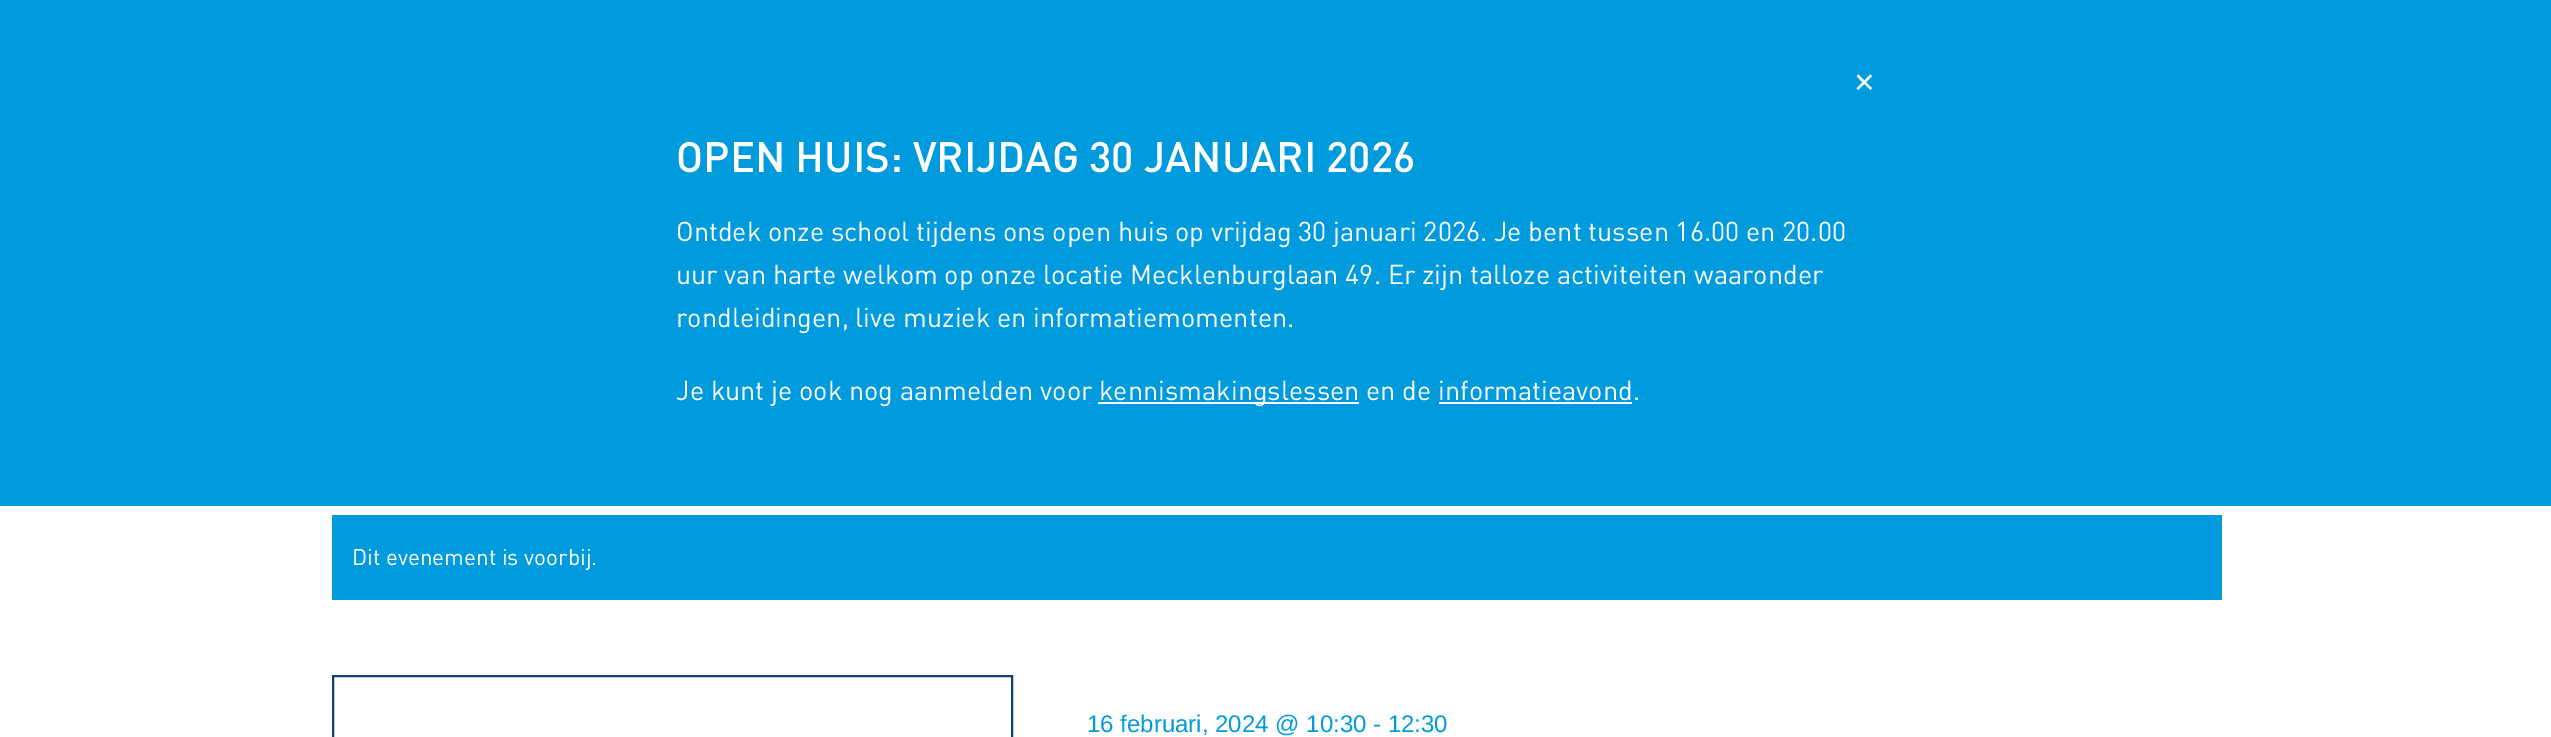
%!PS
<< /PageSize [2551 737] >> setpagedevice
/w/setlinewidth load def
/C { dup -16 bitshift 255 div exch dup -8 bitshift 255 and 255 div exch 255 and 255 div setrgbcolor } def
/F { [ exch dup neg 0 0 3 -1 roll 0 0 ] selectfont } def
/T { moveto show } def
/R { rectfill } def
0 737 translate 1 -1 scale
4 setmiterlimit
16#FFFFFF C
0 0 2551 737 R
16#009BDD C
0 0 2551 506 R
/DejaVuSans-Regular 27 F
16#FFFFFF C
(✕) 1853 92 T
/DIN-Medium 42 F
(OPEN HUIS: VRIJDAG 30 JANUARI 2026) 676 172 T
/DIN-Regular 27 F
(Ontdek onze school tijdens ons open huis op vrijdag 30 januari 2026. Je bent tussen 16.00 en 20.00) 676 241 T
(uur van harte welkom op onze locatie Mecklenburglaan 49. Er zijn talloze activiteiten waaronder) 676 284 T
(rondleidingen, live muziek en informatiemomenten.) 676 327 T
(Je kunt je ook nog aanmelden voor) 676 400 T
1098 402 261 2 R
(kennismakingslessen en de informatieavond.) 1099 400 T
1439 402 193 2 R
16#009BDD C
332 515 1890 85 R
/DIN-Regular 22.5 F
16#FFFFFF C
(Dit evenement is voorbij.) 352 565 T
16#114170 C
2 w
333 676 679 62 rectstroke
/LiberationSans-Regular 24 F
16#009BDD C
(16 februari, 2024 @ 10:30 - 12:30) 1087 732 T
showpage
